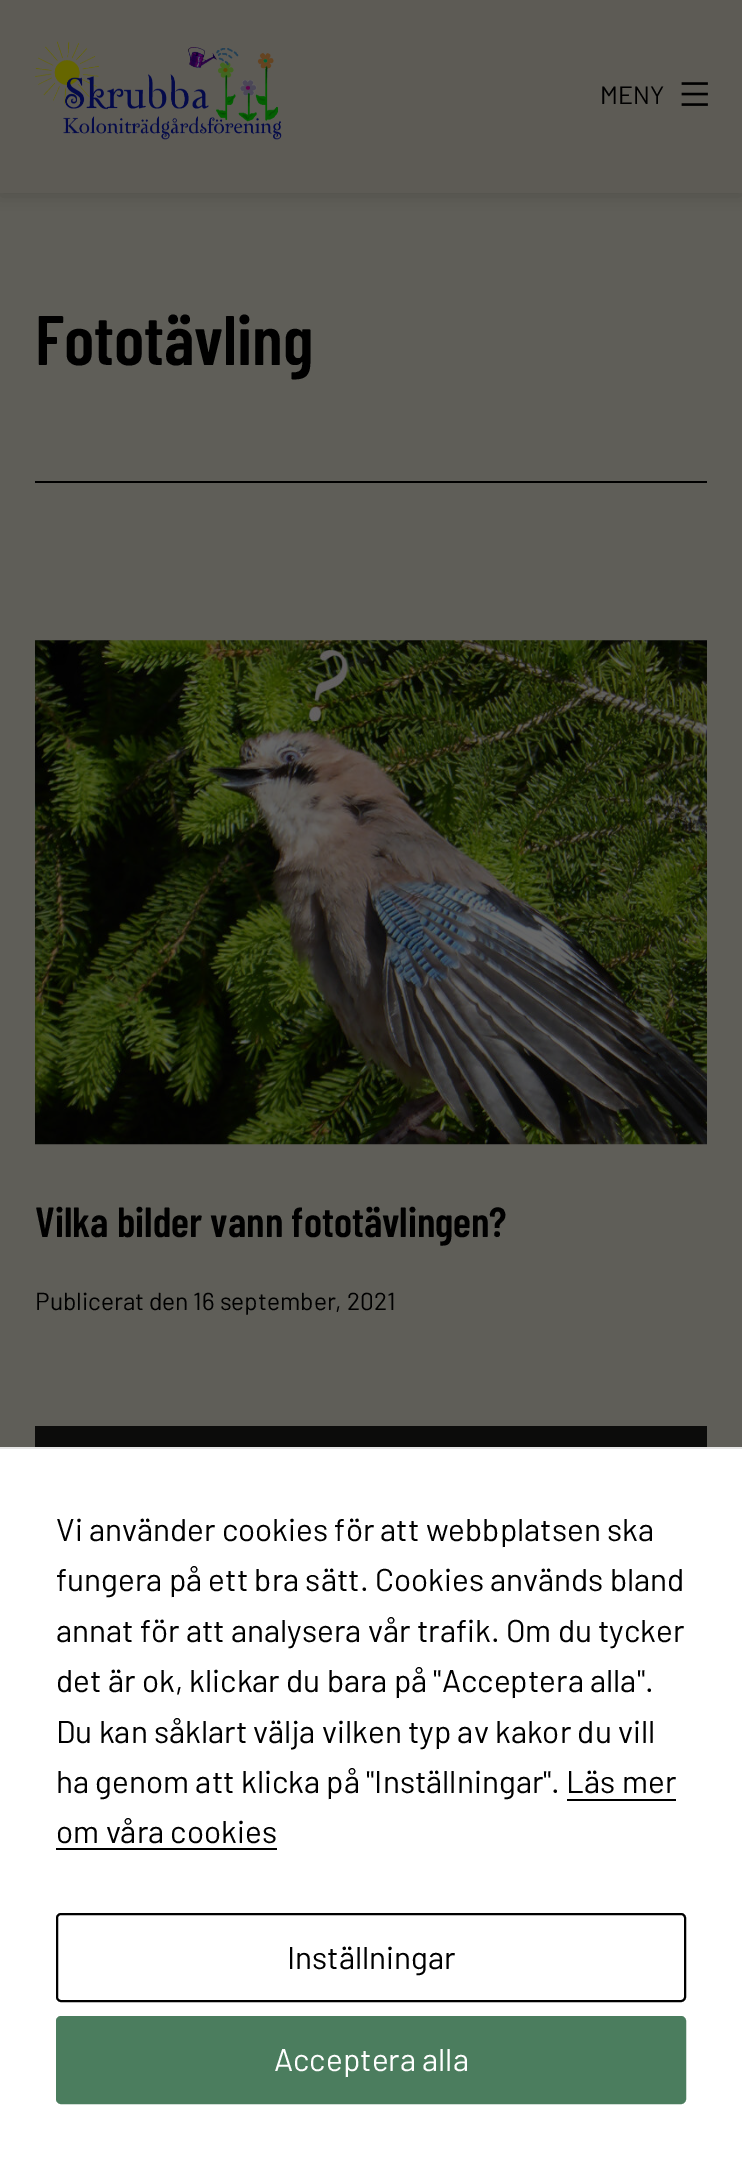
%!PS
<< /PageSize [742 2158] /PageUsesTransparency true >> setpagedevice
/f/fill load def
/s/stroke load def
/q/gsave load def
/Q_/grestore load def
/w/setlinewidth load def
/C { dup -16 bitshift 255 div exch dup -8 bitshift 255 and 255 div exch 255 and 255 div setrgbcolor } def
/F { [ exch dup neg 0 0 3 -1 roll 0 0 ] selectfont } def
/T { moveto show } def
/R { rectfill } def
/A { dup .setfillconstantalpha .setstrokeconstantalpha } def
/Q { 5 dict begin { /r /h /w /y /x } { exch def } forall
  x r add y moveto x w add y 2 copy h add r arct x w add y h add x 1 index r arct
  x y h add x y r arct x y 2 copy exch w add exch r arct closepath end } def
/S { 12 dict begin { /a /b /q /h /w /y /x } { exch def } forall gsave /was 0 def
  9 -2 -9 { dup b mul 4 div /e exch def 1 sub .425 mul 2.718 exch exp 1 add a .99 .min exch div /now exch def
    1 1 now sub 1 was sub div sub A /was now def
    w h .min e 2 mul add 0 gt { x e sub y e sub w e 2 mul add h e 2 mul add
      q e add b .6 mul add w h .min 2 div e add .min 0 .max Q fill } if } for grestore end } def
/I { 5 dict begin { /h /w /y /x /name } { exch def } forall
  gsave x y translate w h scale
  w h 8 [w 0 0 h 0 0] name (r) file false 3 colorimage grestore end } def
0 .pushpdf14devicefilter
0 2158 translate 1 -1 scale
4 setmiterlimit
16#5F5E58 C
0 0 742 2158 R
16#000000 C
0 4 742 192 0 9 .16 S
16#5D5B55 C
0 0 742 193 R
(1.rgb) 35 41 247 99 I
/Barlow-Regular 25 F
16#000000 C
(MENY) 600 104 T
(2.rgb) 681 82 27 24 I
35 481 672 2 R
/BarlowCondensed-SemiBold 70 F
(Fototävling) 35 365 T
(3.rgb) 35 640 672 505 I
/BarlowCondensed-SemiBold 42 F
(Vilka bilder vann fototävlingen?) 35 1237 T
/Barlow-Regular 24.5 F
(Publicerat den 16 september, 2021) 35 1310 T
(4.rgb) 35 1426 672 21 I
16#FFFFFF C
0 1449 742 709 R
16#E6E6E6 C
0 1447 742 2 R
/Barlow-Regular 31.5 F
16#000000 C
(Vi använder cookies för att webbplatsen ska) 56 1541 T
(fungera på ett bra sätt. Cookies används bland) 56 1591 T
(annat för att analysera vår trafik. Om du tycker) 56 1642 T
(det är ok, klickar du bara på "Acceptera alla".) 56 1692 T
(Du kan såklart välja vilken typ av kakor du vill) 56 1743 T
(ha genom att klicka på "Inställningar". Läs mer) 56 1793 T
(om våra cookies) 56 1843 T
567 1799 109 2 R
56 1848 221 2 R
2 w
57 1914 628 87 4 Q s
(Inställningar) 287 1969 T
16#4B7D5E C
57 2017 628 86 4 Q q f Q_
s
16#FFFFFF C
(Acceptera alla) 274 2071 T
.poppdf14devicefilter showpage
